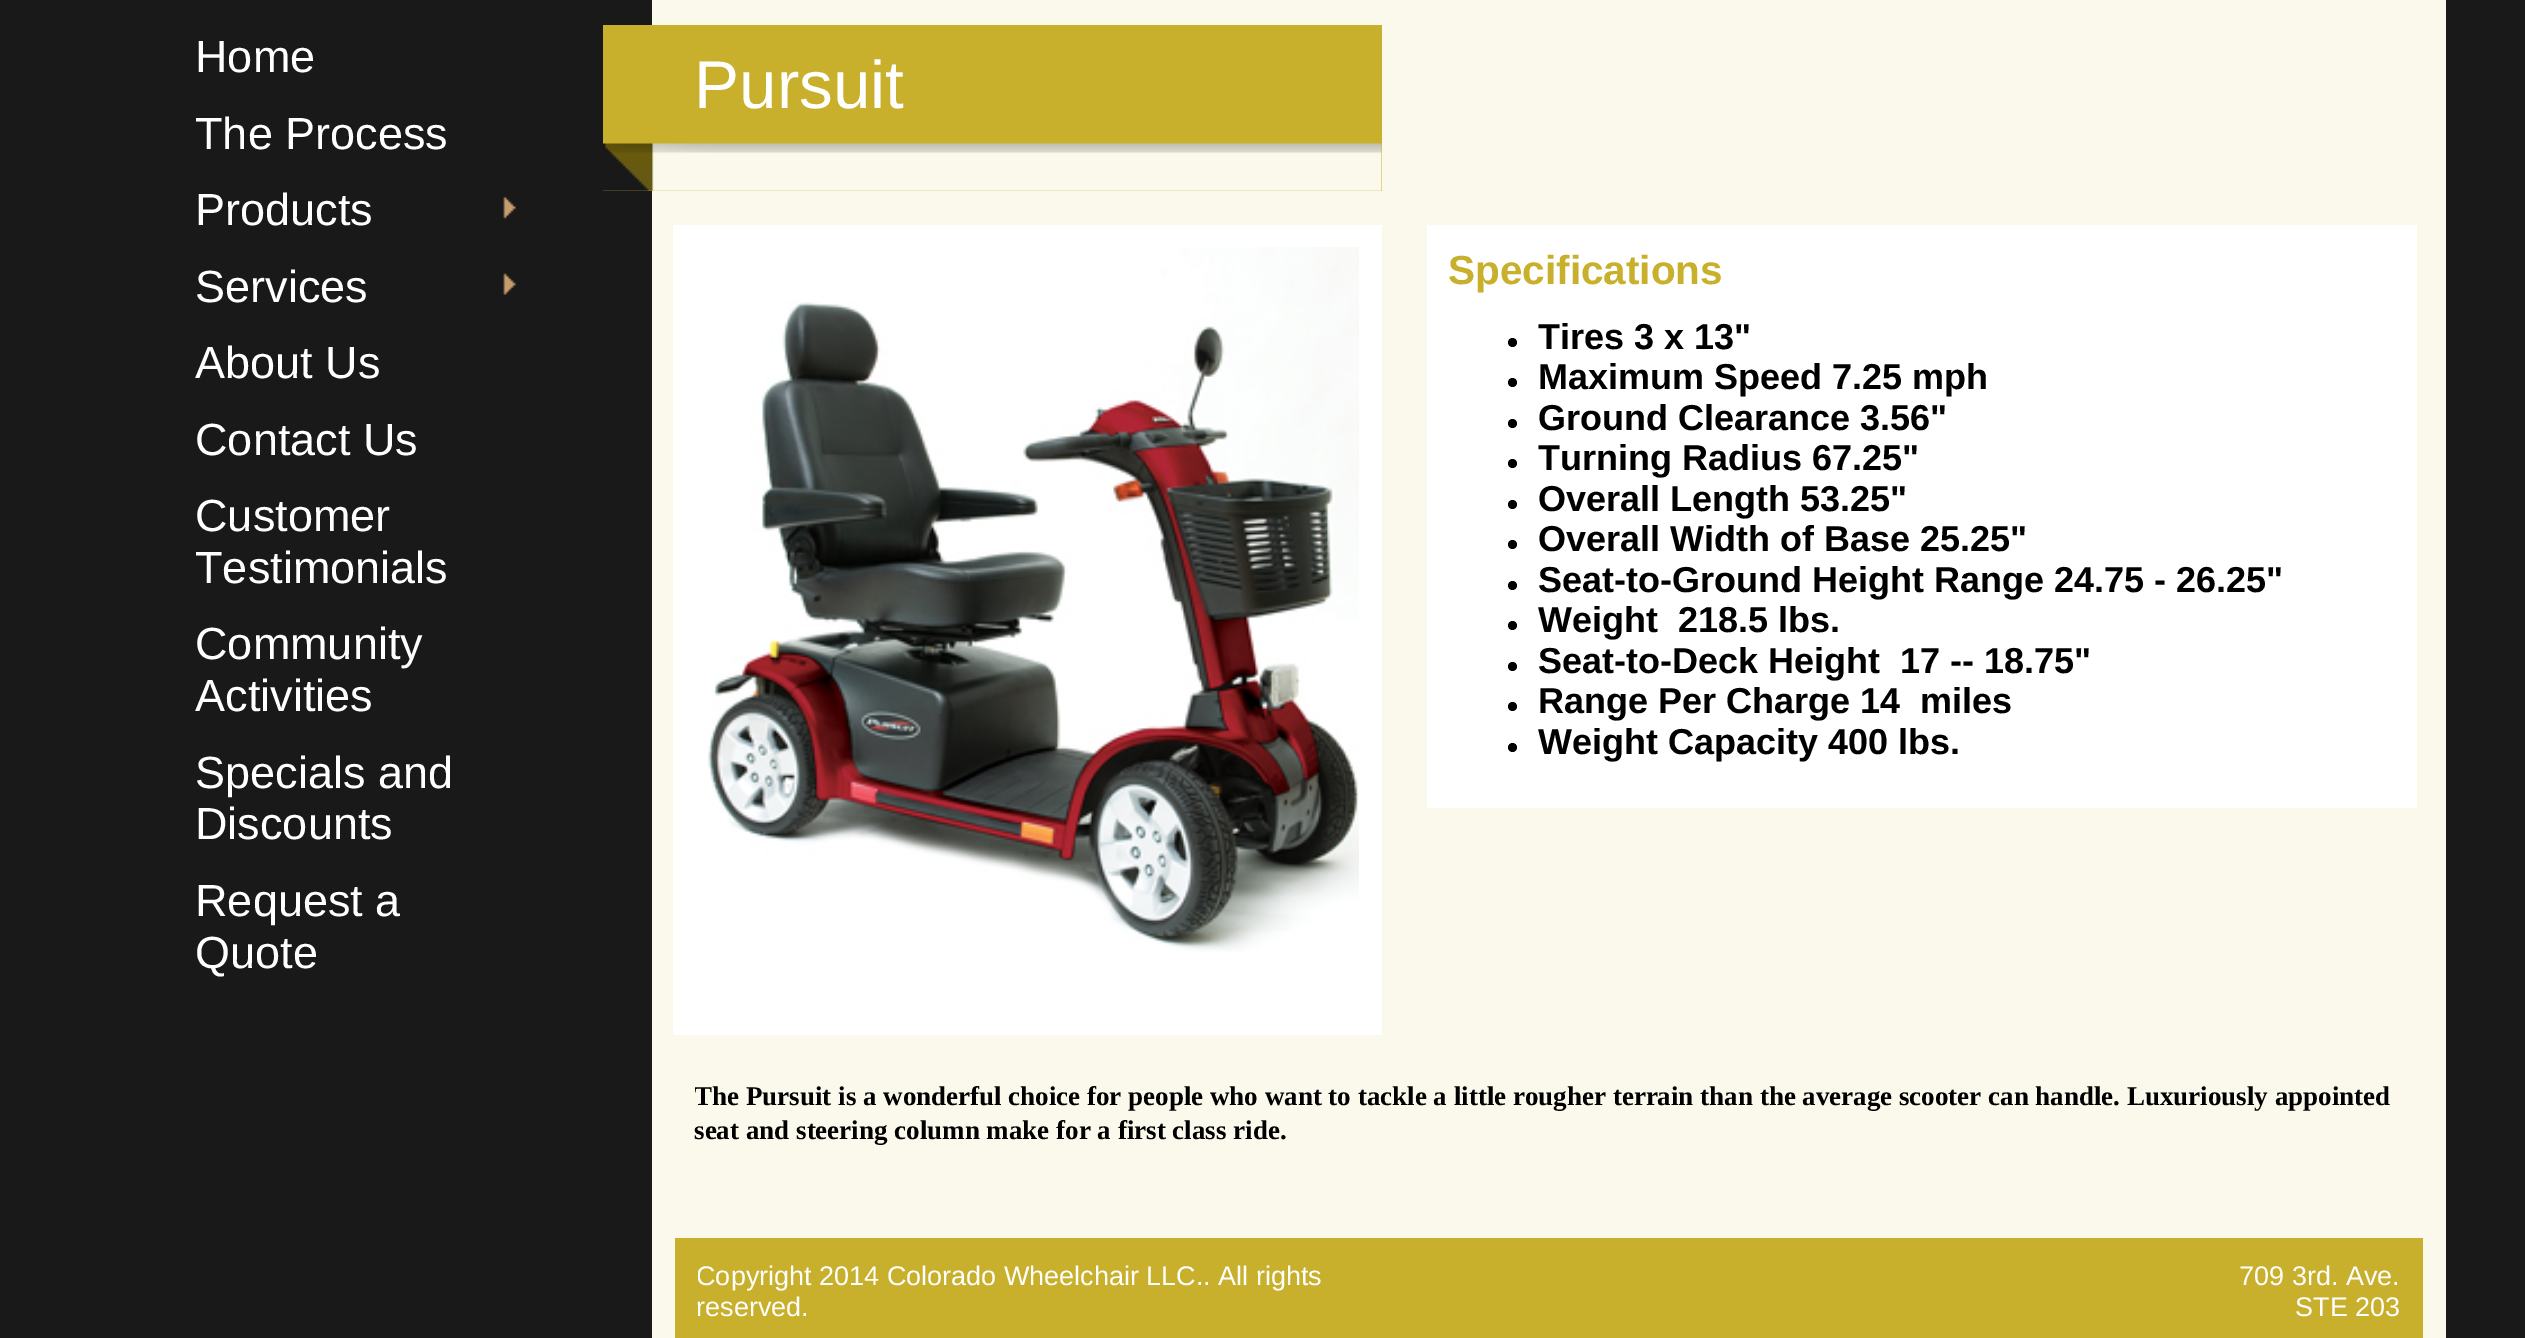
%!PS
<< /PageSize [2525 1338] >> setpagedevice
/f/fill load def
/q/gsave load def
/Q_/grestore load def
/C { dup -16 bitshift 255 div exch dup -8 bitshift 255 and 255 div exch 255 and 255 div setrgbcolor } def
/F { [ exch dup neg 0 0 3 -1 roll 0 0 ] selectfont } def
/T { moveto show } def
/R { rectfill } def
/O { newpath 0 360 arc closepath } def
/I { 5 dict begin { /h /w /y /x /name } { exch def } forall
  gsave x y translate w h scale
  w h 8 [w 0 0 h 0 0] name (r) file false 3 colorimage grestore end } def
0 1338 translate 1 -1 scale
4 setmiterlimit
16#191919 C
0 0 2525 1338 R
16#FBF9EB C
652 0 1794 1338 R
/LiberationSans-Regular 45 F
16#FFFFFF C
(Home) 195 72 T
(The Process) 195 149 T
(Products) 195 225 T
(1.rgb) 503 197 13 22 I
(Services) 195 302 T
(2.rgb) 503 273 13 22 I
(About Us) 195 378 T
(Contact Us) 195 455 T
(Customer) 195 531 T
(Testimonials) 195 583 T
(Community) 195 659 T
(Activities) 195 711 T
(Specials and) 195 788 T
(Discounts) 195 839 T
(Request a) 195 916 T
(Quote) 195 968 T
16#C8B02D C
603 25 779 166 R
(3.rgb) 603 143 779 48 I
/LiberationSans-Regular 67.5 F
16#FFFFFF C
(Pursuit) 694 108 T
673 225 709 810 R
(4.rgb) 708 247 651 705 I
1427 225 990 583 R
/LiberationSans-Bold 40.5 F
16#C8B02D C
(Specifications) 1448 284 T
16#000000 C
1512.5 342.5 4.5 O f
/LiberationSans-Bold 36 F
(Tires 3 x 13") 1538 349 T
1512.5 382.5 4.5 O f
(Maximum Speed 7.25 mph) 1538 389 T
1512.5 423.5 4.5 O f
(Ground Clearance 3.56") 1538 430 T
1512.5 463.5 4.5 O f
(Turning Radius 67.25") 1538 470 T
1512.5 504.5 4.5 O f
(Overall Length 53.25") 1538 511 T
1512.5 544.5 4.5 O f
(Overall Width of Base 25.25") 1538 551 T
1512.5 585.5 4.5 O f
(Seat-to-Ground Height Range 24.75 - 26.25") 1538 592 T
1512.5 625.5 4.5 O f
(Weight  218.5 lbs.) 1538 632 T
1512.5 666.5 4.5 O f
(Seat-to-Deck Height  17 -- 18.75") 1538 673 T
1512.5 706.5 4.5 O f
(Range Per Charge 14  miles) 1538 713 T
1512.5 747.5 4.5 O f
(Weight Capacity 400 lbs.) 1538 754 T
q
695 1080 1699 90 rectclip
/LiberationSerif-Bold 27 F
(The Pursuit is a wonderful choice for people who want to tackle a little rougher terrain than the average scooter can handle. Luxuriously appointed) 694 1105 T
Q_
/LiberationSerif-Bold 27 F
(seat and steering column make for a first class ride.) 694 1139 T
16#C8B02D C
675 1238 1748 100 R
q
698 1260 668 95 rectclip
/LiberationSans-Regular 27 F
16#FFFFFF C
(Copyright 2014 Colorado Wheelchair LLC.. All rights) 696 1285 T
Q_
/LiberationSans-Regular 27 F
16#FFFFFF C
(reserved.) 696 1316 T
(709 3rd. Ave.) 2239 1285 T
(STE 203) 2295 1316 T
showpage
